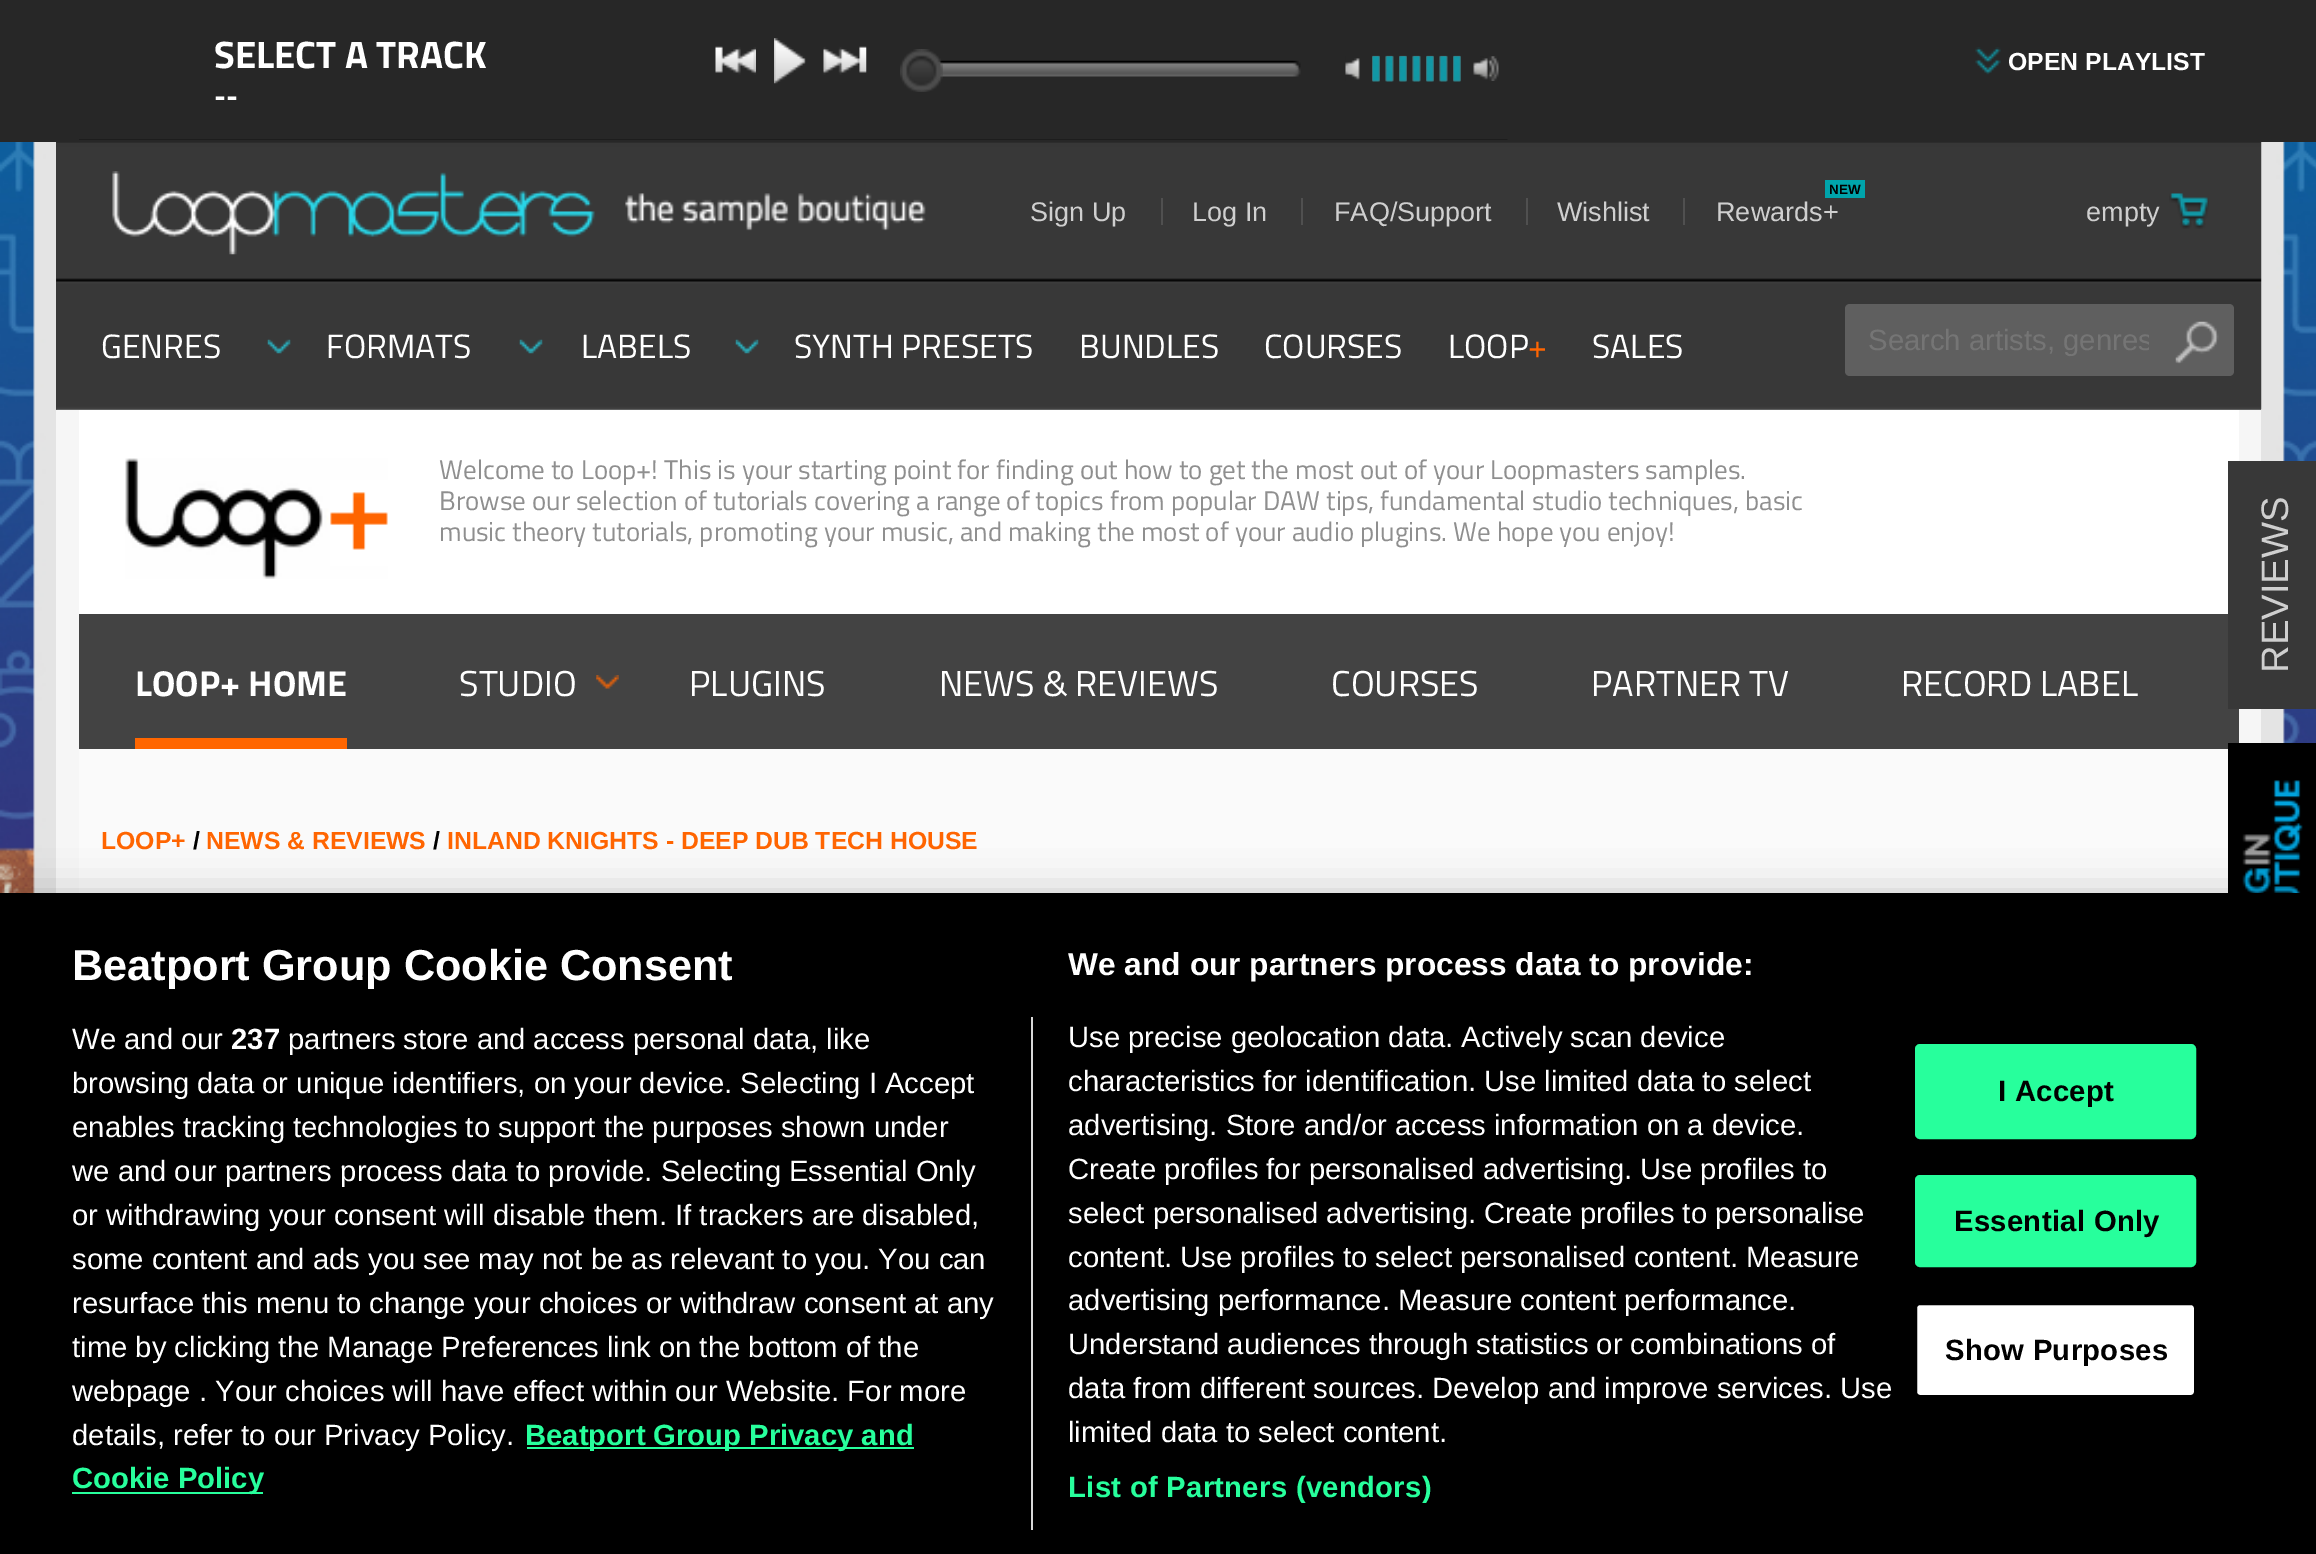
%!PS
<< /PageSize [2316 1554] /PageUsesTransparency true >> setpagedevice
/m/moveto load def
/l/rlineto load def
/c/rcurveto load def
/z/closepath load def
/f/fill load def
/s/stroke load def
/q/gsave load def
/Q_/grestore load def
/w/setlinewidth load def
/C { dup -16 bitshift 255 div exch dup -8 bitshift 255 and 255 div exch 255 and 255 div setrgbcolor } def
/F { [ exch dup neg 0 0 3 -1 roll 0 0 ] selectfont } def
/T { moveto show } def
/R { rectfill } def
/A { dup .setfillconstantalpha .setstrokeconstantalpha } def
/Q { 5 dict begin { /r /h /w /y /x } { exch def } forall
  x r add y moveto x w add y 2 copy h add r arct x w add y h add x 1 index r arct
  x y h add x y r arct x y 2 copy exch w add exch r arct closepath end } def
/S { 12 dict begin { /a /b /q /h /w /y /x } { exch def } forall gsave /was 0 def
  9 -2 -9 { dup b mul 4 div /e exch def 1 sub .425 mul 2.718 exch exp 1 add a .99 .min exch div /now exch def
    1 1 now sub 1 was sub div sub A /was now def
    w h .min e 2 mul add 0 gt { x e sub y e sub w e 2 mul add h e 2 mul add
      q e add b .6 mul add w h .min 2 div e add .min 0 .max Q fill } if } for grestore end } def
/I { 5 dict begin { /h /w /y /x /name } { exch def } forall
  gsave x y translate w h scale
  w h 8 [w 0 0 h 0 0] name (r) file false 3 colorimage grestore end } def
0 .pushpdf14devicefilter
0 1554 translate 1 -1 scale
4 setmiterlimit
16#FFFFFF C
0 0 2316 1554 R
(1.rgb) 0 142 2316 751 I
16#272727 C
0 0 2316 142 R
(2.rgb) 79 139 1429 1 I
/TitilliumWeb-Bold 38.25 F
16#FFFFFF C
(SELECT A TRACK) 214 68 T
/TitilliumWeb-Bold 29.25 F
(--) 214 106 T
(3.rgb) 715 46 41 29 I
(4.rgb) 774 38 32 46 I
(5.rgb) 823 46 44 29 I
(6.rgb) 937 60 364 17 I
(7.rgb) 900 49 43 43 I
(8.rgb) 1345 56 154 25 I
(9.rgb) 1372 55 89 27 I
(10.rgb) 1372 56 89 26 I
(11.rgb) 1975 47 26 28 I
/LiberationSans-Bold 24.75 F
(OPEN PLAYLIST) 2008 70 T
16#F6F6F6 C
56 410 2205 483 R
16#383838 C
56 142 2205 268 R
(12.rgb) 56 142 2206 268 I
(13.rgb) 112 171 814 84 I
16#505050 C
1161 198 2 27 R
/LiberationSans-Regular 27 F
16#CFCFCF C
(Sign Up) 1030 221 T
16#505050 C
1301 198 2 27 R
16#CFCFCF C
(Log In) 1192 221 T
16#505050 C
1526 198 2 27 R
16#CFCFCF C
(FAQ/Support) 1334 221 T
16#505050 C
1683 198 2 27 R
16#CFCFCF C
(Wishlist) 1557 221 T
16#00A4AB C
1825 180 40 18 R
/LiberationSans-Bold 13.5 F
16#000000 C
(NEW) 1829 194 T
/LiberationSans-Regular 27 F
16#CFCFCF C
(Rewards+) 1716 221 T
(14.rgb) 2169 193 40 36 I
(empty) 2086 221 T
(15.rgb) 267 339 24 15 I
/TitilliumWeb-Regular 33.75 F
16#FFFFFF C
(GENRES) 101 358 T
(15.rgb) 519 339 24 15 I
(FORMATS) 326 358 T
(15.rgb) 735 339 24 15 I
(LABELS) 581 358 T
(SYNTH PRESETS) 794 358 T
(BUNDLES) 1079 358 T
(COURSES) 1264 358 T
(LOOP) 1448 358 T
16#FF6501 C
(+) 1528 358 T
16#FFFFFF C
(SALES) 1592 358 T
16#5F5F5F C
1850 304 m 321 0 l 0 72 l -321 0 l -3 0 -5 -2 -5 -5 c 0 -62 l 0 -3 2 -5 5 -5 c z f
q
1868 324 281 34 rectclip
/LiberationSans-Regular 29.25 F
16#757575 C
(Search artists, genres) 1868 350 T
Q_
2171 304 m 58 0 l 3 0 5 2 5 5 c 0 62 l 0 3 -2 5 -5 5 c -58 0 l z f
(16.rgb) 2175 321 44 43 I
16#FAFAFA C
79 749 2149 144 R
16#FFFFFF C
79 410 2160 204 R
(17.rgb) 125 458 263 121 I
/TitilliumWeb-Regular 27 F
16#8F8F8F C
(Welcome to Loop+! This is your starting point for finding out how to get the most out of your Loopmasters samples.) 439 479 T
(Browse our selection of tutorials covering a range of topics from popular DAW tips, fundamental studio techniques, basic) 439 510 T
(music theory tutorials, promoting your music, and making the most of your audio plugins. We hope you enjoy!) 439 541 T
16#434343 C
79 614 2160 135 R
16#FF6600 C
135 738 212 11 R
/TitilliumWeb-Bold 36 F
16#FFFFFF C
(LOOP+ HOME) 135 696 T
(18.rgb) 596 675 23 14 I
/TitilliumWeb-Regular 36 F
(STUDIO) 459 696 T
(PLUGINS) 689 696 T
(NEWS & REVIEWS) 939 696 T
(COURSES) 1331 696 T
(PARTNER TV) 1591 696 T
(RECORD LABEL) 1901 696 T
/LiberationSans-Bold 24.75 F
16#FF6501 C
(LOOP+) 101 849 T
16#000000 C
(/) 193 849 T
16#FF6501 C
(NEWS & REVIEWS) 206 849 T
16#000000 C
(/) 433 849 T
16#FF6501 C
(INLAND KNIGHTS - DEEP DUB TECH HOUSE) 447 849 T
16#383838 C
2228 461 88 248 R
/LiberationSans-Regular 38.25 F
16#CFCFCF C
q 2288 673 translate -90 rotate 0 0 m (REVIEWS) show Q_
16#000000 C
2228 743 88 150 R
(19.rgb) 2242 780 61 113 I
0 893 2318 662 0 20 .2 S
0 893 2316 661 R
/LiberationSans-Bold 43.25 F
16#FFFFFF C
(Beatport Group Cookie Consent) 72 980 T
/LiberationSans-Bold 31.7 F
(We and our partners process data to provide:) 1068 975 T
/LiberationSans-Regular 29.25 F
(Use precise geolocation data. Actively scan device) 1068 1047 T
(characteristics for identification. Use limited data to select) 1068 1091 T
(advertising. Store and/or access information on a device.) 1068 1135 T
(Create profiles for personalised advertising. Use profiles to) 1068 1179 T
(select personalised advertising. Create profiles to personalise) 1068 1223 T
(content. Use profiles to select personalised content. Measure) 1068 1267 T
(advertising performance. Measure content performance.) 1068 1310 T
(Understand audiences through statistics or combinations of) 1068 1354 T
(data from different sources. Develop and improve services. Use) 1068 1398 T
(limited data to select content.) 1068 1442 T
/LiberationSans-Bold 29.25 F
16#27FF9C C
1068 1497 m .3 0 (List of Partners \(vendors\)) ashow
16#D8D8D8 C
1031 1017 2 513 R
/LiberationSans-Regular 29.25 F
16#FFFFFF C
(We and our) 72 1049 T
/LiberationSans-Bold 29.25 F
(237) 231 1049 T
/LiberationSans-Regular 29.25 F
(partners store and access personal data, like) 288 1049 T
(browsing data or unique identifiers, on your device. Selecting I Accept) 72 1093 T
(enables tracking technologies to support the purposes shown under) 72 1137 T
(we and our partners process data to provide. Selecting Essential Only) 72 1181 T
(or withdrawing your consent will disable them. If trackers are disabled,) 72 1225 T
(some content and ads you see may not be as relevant to you. You can) 72 1269 T
(resurface this menu to change your choices or withdraw consent at any) 72 1313 T
(time by clicking the Manage Preferences link on the bottom of the) 72 1357 T
(webpage . Your choices will have effect within our Website. For more) 72 1401 T
(details, refer to our Privacy Policy.) 72 1445 T
16#27FF9C C
527 1447 387 2 R
/LiberationSans-Bold 29.25 F
(Beatport Group Privacy and) 525 1445 T
72 1492 191 2 R
(Cookie Policy) 72 1488 T
1916 1045 279 93 4 Q q f Q_
2 w
s
16#000000 C
1998 1101 m .3 0 (I Accept) ashow
16#27FF9C C
1916 1176 279 90 4 Q q f Q_
s
16#000000 C
1954 1231 m .3 0 (Essential Only) ashow
16#FFFFFF C
1916 1304 279 92 4 Q q f Q_
16#000000 C
s
1945 1360 m .3 0 (Show Purposes) ashow
.poppdf14devicefilter showpage
